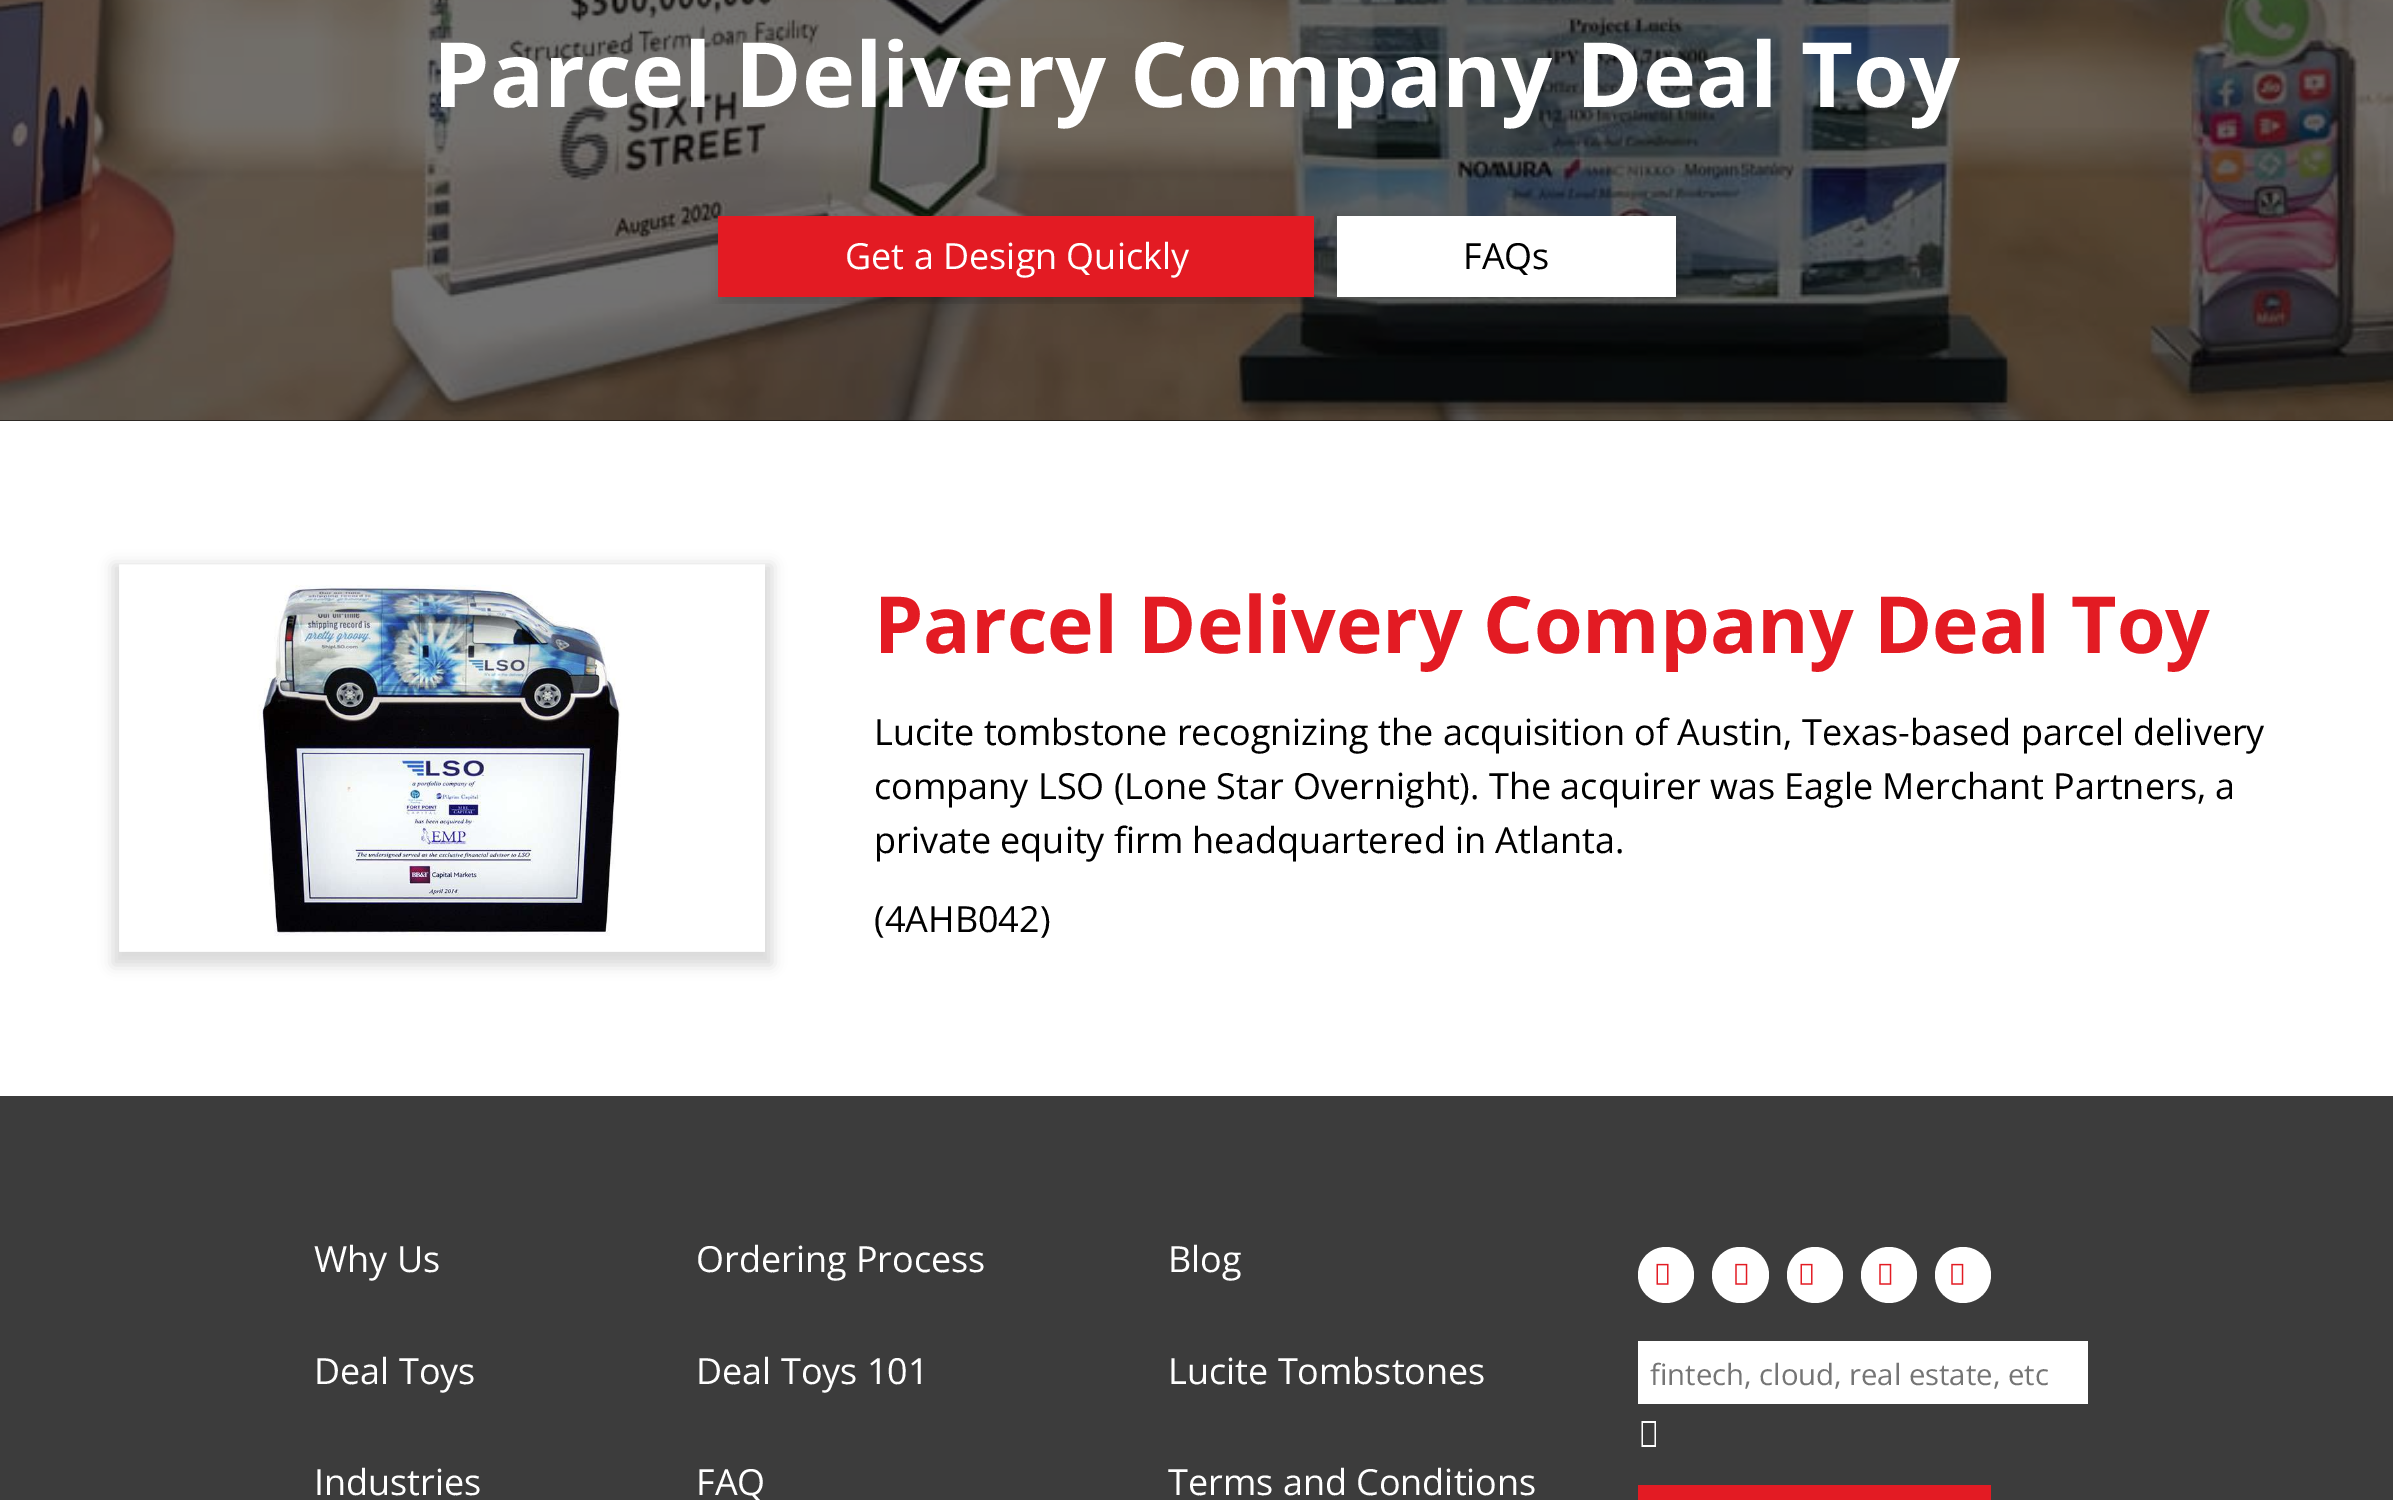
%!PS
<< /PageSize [2393 1500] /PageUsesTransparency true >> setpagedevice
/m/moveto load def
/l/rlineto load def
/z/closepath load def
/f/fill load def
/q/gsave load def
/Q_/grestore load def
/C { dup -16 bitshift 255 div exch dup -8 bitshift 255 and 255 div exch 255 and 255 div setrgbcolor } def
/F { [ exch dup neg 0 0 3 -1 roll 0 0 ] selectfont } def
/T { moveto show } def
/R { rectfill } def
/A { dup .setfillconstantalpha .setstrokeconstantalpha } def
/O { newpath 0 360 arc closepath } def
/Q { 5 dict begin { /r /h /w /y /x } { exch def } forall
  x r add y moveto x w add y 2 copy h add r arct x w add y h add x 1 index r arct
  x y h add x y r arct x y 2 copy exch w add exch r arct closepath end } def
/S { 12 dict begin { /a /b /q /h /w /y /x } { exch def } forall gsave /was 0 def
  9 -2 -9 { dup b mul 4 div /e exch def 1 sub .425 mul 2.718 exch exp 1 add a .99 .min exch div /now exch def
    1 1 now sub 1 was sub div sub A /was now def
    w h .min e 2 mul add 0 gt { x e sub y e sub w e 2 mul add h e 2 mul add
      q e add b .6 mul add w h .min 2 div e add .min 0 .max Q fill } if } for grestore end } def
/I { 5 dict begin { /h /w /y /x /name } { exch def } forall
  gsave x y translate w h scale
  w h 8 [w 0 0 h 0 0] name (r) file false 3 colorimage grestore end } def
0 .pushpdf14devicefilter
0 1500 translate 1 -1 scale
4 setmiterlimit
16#FFFFFF C
0 0 2393 1500 R
16#000000 C
0 420 2393 1 R
(1.rgb) 0 0 2393 421 I
/OpenSans-Bold 90 F
16#FFFFFF C
(Parcel Delivery Company Deal Toy) 433 107 T
q
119 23 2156 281 rectclip
16#000000 C
720 223 596 81 0 7 .16 S
Q_
16#E31B23 C
718 216 596 81 R
/OpenSans-Regular 36 F
16#FFFFFF C
(Get a Design Quickly) 845 269 T
q
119 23 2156 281 rectclip
16#000000 C
1339 223 340 81 0 7 .16 S
Q_
1337 216 339 81 R
16#000000 C
(FAQs) 1463 269 T
113 565 659 400 0 7 .15 S
(2.rgb) 119 564 646 388 I
/OpenSans-Bold 78.75 F
16#E31B23 C
(Parcel Delivery Company Deal Toy) 874 653 T
/OpenSans-Regular 36 F
16#000000 C
(Lucite tombstone recognizing the acquisition of Austin, Texas-based parcel delivery) 874 745 T
(company LSO \(Lone Star Overnight\). The acquirer was Eagle Merchant Partners, a) 874 799 T
(private equity firm headquartered in Atlanta.) 874 853 T
(\(4AHB042\)) 874 932 T
16#3C3C3C C
0 1096 2393 404 R
16#FFFFFF C
(Why Us) 314 1272 T
(Deal Toys) 314 1384 T
(Industries) 314 1495 T
(Ordering Process) 696 1272 T
(Deal Toys 101) 696 1384 T
(FAQ) 696 1495 T
(Blog) 1168 1272 T
(Lucite Tombstones) 1168 1384 T
(Terms and Conditions) 1168 1495 T
1666 1275 28 O f
(3.rgb) 1656 1263 13 22 I
1712 1247 57 56 28 Q f
(4.rgb) 1735 1263 13 22 I
1815 1275 28 O f
(3.rgb) 1800 1263 13 22 I
1889 1275 28 O f
(4.rgb) 1879 1263 13 22 I
1963 1275 28 O f
(4.rgb) 1951 1263 13 22 I
1638 1341 450 63 R
/OpenSans-Regular 29.25 F
16#757575 C
(fintech, cloud, real estate, etc) 1650 1385 T
16#FFFFFF C
1641.5 1447 m 0 -26 l 14.5 0 l 0 26 l z 1643 1445 m 11.5 0 l 0 -22 l -11.5 0 l z f
16#E31B23 C
1638 1485 353 15 R
.poppdf14devicefilter showpage
